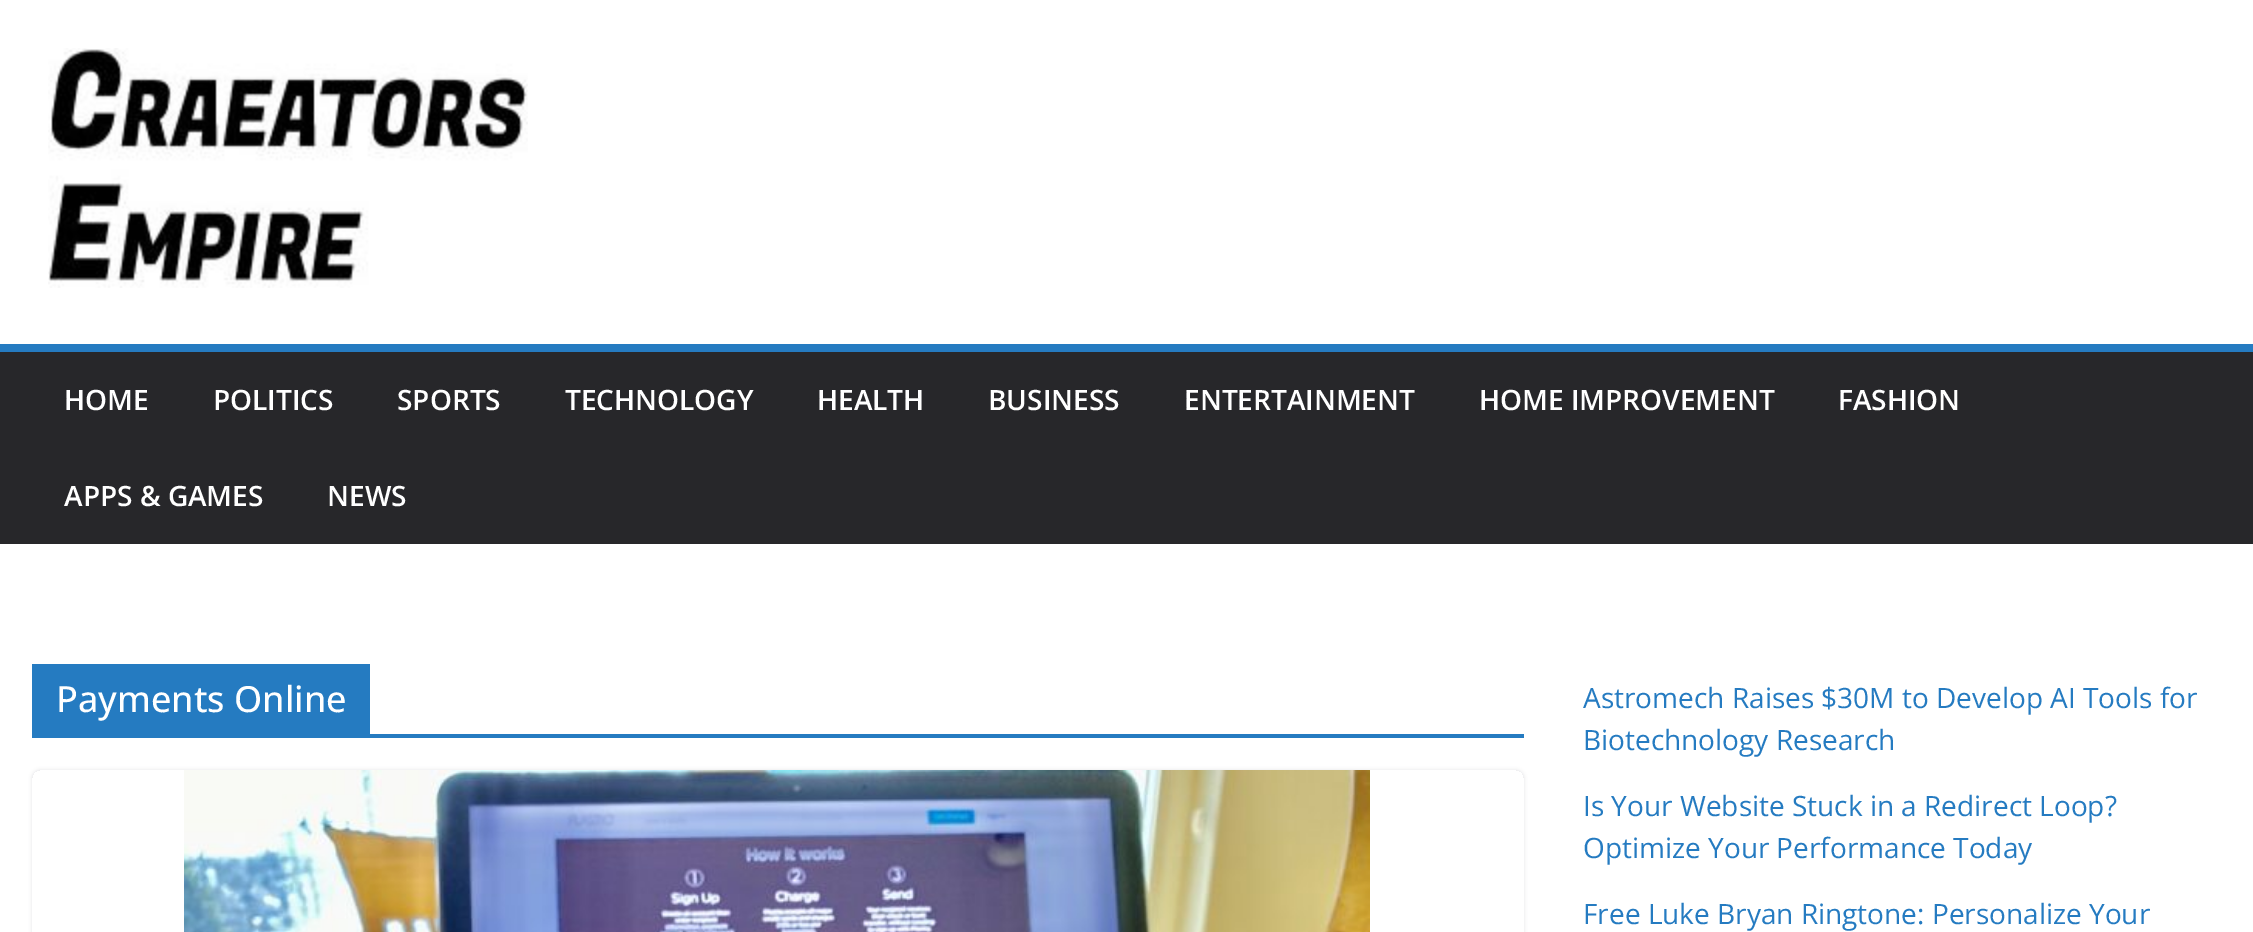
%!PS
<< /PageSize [2253 932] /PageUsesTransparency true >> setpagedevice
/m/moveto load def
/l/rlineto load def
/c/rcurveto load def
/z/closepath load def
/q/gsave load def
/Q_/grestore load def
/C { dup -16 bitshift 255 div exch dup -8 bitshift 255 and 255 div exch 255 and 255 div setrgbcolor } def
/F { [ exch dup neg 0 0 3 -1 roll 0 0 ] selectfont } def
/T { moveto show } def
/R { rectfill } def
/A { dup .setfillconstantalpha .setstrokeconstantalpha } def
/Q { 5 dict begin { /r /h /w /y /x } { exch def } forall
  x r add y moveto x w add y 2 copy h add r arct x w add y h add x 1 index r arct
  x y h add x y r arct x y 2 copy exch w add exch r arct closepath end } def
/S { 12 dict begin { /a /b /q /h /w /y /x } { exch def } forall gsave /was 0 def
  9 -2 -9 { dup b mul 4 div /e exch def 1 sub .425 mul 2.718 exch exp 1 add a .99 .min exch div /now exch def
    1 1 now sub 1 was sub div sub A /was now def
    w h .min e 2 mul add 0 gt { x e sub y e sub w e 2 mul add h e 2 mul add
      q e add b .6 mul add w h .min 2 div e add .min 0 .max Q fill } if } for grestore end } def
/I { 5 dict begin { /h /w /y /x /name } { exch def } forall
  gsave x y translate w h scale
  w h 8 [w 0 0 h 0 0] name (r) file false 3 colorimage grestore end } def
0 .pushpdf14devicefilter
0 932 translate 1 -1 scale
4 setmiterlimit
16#FFFFFF C
0 0 2253 932 R
(1.rgb) 48 48 480 240 I
16#27272A C
0 352 2253 192 R
16#257BC1 C
0 344 2253 8 R
/OpenSans-SemiBold 28 F
16#FFFFFF C
(HOME) 64 410 T
(POLITICS) 213 410 T
(SPORTS) 397 410 T
(TECHNOLOGY) 565 410 T
(HEALTH) 817 410 T
(BUSINESS) 988 410 T
(ENTERTAINMENT) 1184 410 T
(HOME IMPROVEMENT) 1479 410 T
(FASHION) 1838 410 T
(APPS & GAMES) 64 506 T
(NEWS) 327 506 T
16#257BC1 C
32 734 1492 4 R
32 664 338 70 R
/OpenSans-Medium 36 F
16#FFFFFF C
(Payments Online) 56 712 T
q
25 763 m 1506 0 l 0 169 l -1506 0 l z 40 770 m 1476 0 l 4.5 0 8 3.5 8 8 c 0 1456 l 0 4.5 -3.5 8 -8 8 c -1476 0 l -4.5 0 -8 -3.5 -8 -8 c 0 -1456 l 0 -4.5 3.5 -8 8 -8 c z eoclip newpath
16#E4E4E7 C
32 770 1492 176 8 2 1 S
Q_
(2.rgb) 184 770 1186 162 I
/OpenSans-Regular 28 F
16#257BC1 C
(Astromech Raises $30M to Develop AI Tools for) 1583 708 T
(Biotechnology Research) 1583 750 T
(Is Your Website Stuck in a Redirect Loop?) 1583 816 T
(Optimize Your Performance Today) 1583 858 T
(Free Luke Bryan Ringtone: Personalize Your) 1583 924 T
.poppdf14devicefilter showpage
